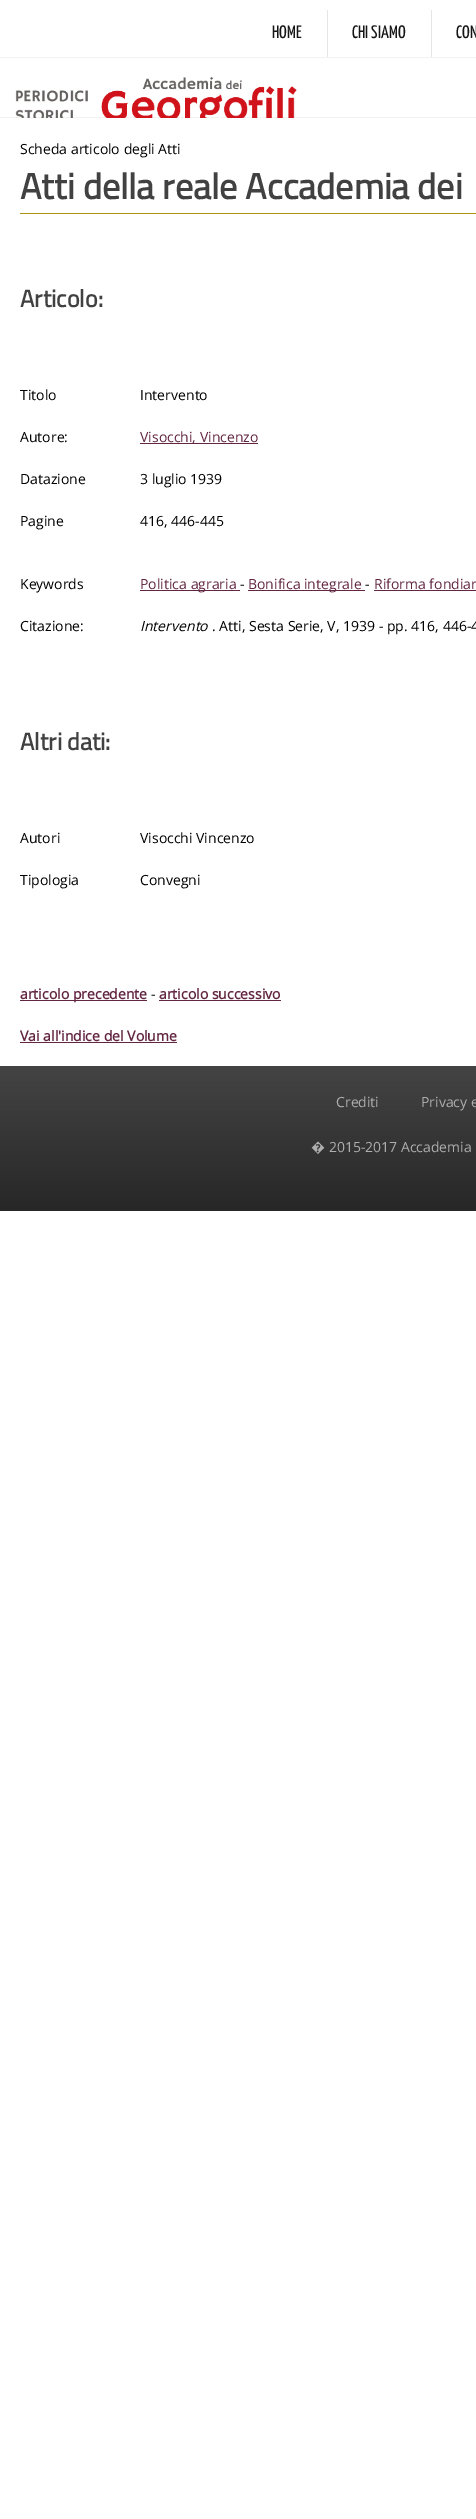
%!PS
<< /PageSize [476 2519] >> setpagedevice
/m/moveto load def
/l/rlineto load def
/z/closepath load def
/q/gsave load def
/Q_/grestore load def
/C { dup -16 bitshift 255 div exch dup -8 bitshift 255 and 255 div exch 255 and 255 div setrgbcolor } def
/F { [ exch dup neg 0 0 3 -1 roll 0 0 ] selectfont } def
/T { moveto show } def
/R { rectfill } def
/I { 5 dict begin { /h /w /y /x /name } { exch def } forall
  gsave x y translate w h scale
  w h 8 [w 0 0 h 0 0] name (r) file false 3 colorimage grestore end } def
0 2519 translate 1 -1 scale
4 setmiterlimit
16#FFFFFF C
0 0 476 2519 R
16#F2F2F2 C
0 57 476 1 R
16#E6E6E6 C
327 10 1 47 R
/YanoneKaffeesatz-Regular 18 F
16#151515 C
(HOME) 272 38 T
16#E6E6E6 C
431 10 1 47 R
16#151515 C
(CHI SIAMO) 352 38 T
(CON) 456 38 T
16#F2F2F2 C
0 117 476 1 R
(1.rgb) 15 76 282 42 I
/OpenSans-Regular 14 F
16#000000 C
(Scheda articolo degli Atti) 20 154 T
16#AE9312 C
20 213 456 1 R
/TitilliumWeb-Bold 36 F
16#414141 C
(Atti della reale Accademia dei) 20 199 T
/TitilliumWeb-Bold 24 F
(Articolo:) 20 307 T
/OpenSans-Regular 14 F
16#000000 C
(Titolo) 20 400 T
(Intervento) 140 400 T
(Autore:) 20 442 T
16#632642 C
140 443 118 1 R
(Visocchi, Vincenzo) 140 442 T
16#000000 C
(Datazione) 20 484 T
(3 luglio 1939) 140 484 T
(Pagine) 20 526 T
(416, 446-445) 140 526 T
(Keywords) 20 589 T
16#632642 C
140 590 100 1 R
(Politica agraria) 140 589 T
16#000000 C
(-) 240 589 T
16#632642 C
248 590 117 1 R
(Bonifica integrale) 248 589 T
16#000000 C
(-) 365 589 T
16#632642 C
(Riforma fondiar) 374 589 T
374 590 102 1 R
16#000000 C
(Citazione:) 20 631 T
/OpenSans-Italic 14 F
(Intervento) 140 631 T
/OpenSans-Regular 14 F
(. Atti, Sesta Serie, V, 1939 - pp. 416, 446-4) 212 631 T
/TitilliumWeb-Bold 24 F
16#414141 C
(Altri dati:) 20 750 T
/OpenSans-Regular 14 F
16#000000 C
(Autori) 20 843 T
(Visocchi Vincenzo) 140 843 T
(Tipologia) 20 885 T
(Convegni) 140 885 T
16#632642 C
20 1000 127 1 R
/OpenSans-Bold 14 F
(articolo precedente) 20 999 T
/OpenSans-Regular 14 F
16#000000 C
(-) 151 999 T
/OpenSans-Bold 14 F
16#632642 C
(articolo successivo) 159 999 T
159 1000 122 1 R
(Vai all'indice del Volume) 20 1041 T
20 1042 157 1 R
q 0 1066 m 476 0 l 0 145 l -476 0 l z clip newpath
<< /ShadingType 2 /ColorSpace /DeviceRGB /Coords [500 1066 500 1211] /Extend [true true] /Function << /FunctionType 2 /Domain [0 1] /C0 [.267 .267 .267] /C1 [.153 .153 .153] /N 1 >> >> shfill Q_
/OpenSans-Regular 14 F
16#AEAEAE C
(Crediti) 336 1107 T
(Privacy e) 421 1107 T
(� 2015-2017 Accademia) 311 1152 T
showpage
